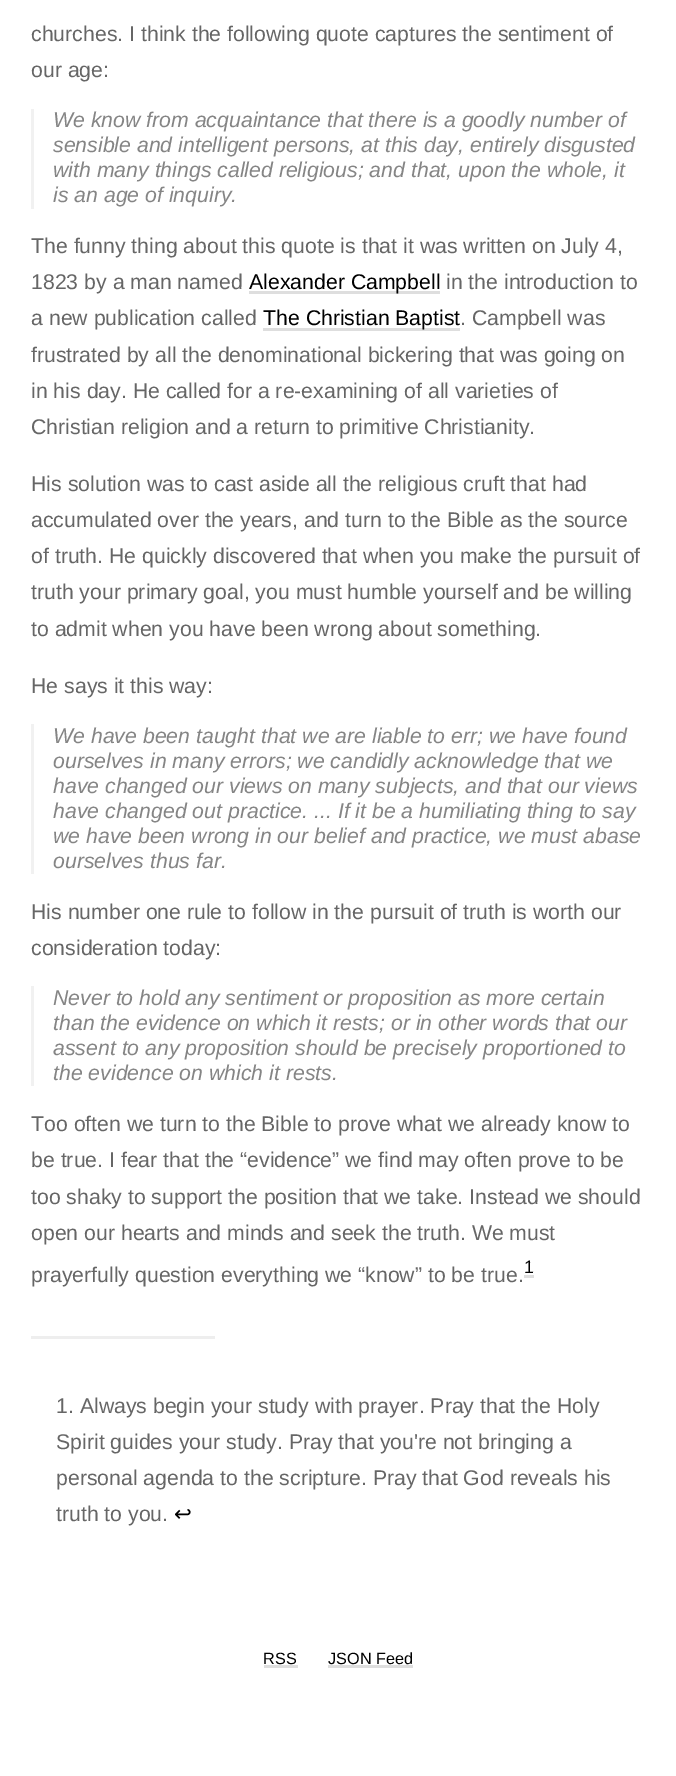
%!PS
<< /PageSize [676 1776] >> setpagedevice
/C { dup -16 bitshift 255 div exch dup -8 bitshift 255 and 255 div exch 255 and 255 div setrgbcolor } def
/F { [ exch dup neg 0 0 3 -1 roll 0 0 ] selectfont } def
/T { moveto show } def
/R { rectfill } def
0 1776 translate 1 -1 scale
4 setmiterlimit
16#FFFFFF C
0 0 676 1776 R
/LiberationSans-Regular 21.25 F
16#666666 C
(churches. I think the following quote captures the sentiment of) 31 41 T
(our age:) 31 77 T
16#F1F1F1 C
31 109 3 100 R
/LiberationSans-Italic 21.25 F
16#858585 C
(We know from acquaintance that there is a goodly number of) 53 127 T
(sensible and intelligent persons, at this day, entirely disgusted) 53 152 T
(with many things called religious; and that, upon the whole, it) 53 177 T
(is an age of inquiry.) 53 202 T
/LiberationSans-Regular 21.25 F
16#666666 C
(The funny thing about this quote is that it was written on July 4,) 31 253 T
(1823 by a man named) 31 289 T
16#DEDEDE C
249 291 191 3 R
16#000000 C
(Alexander Campbell) 249 289 T
16#666666 C
(in the introduction to) 446 289 T
(a new publication called) 31 325 T
16#DEDEDE C
263 328 197 3 R
16#000000 C
(The Christian Baptist) 263 325 T
16#666666 C
(. Campbell was) 460 325 T
(frustrated by all the denominational bickering that was going on) 31 362 T
(in his day. He called for a re-examining of all varieties of) 31 398 T
(Christian religion and a return to primitive Christianity.) 31 434 T
(His solution was to cast aside all the religious cruft that had) 31 491 T
(accumulated over the years, and turn to the Bible as the source) 31 527 T
(of truth. He quickly discovered that when you make the pursuit of) 31 563 T
(truth your primary goal, you must humble yourself and be willing) 31 599 T
(to admit when you have been wrong about something.) 31 636 T
(He says it this way:) 31 693 T
16#F1F1F1 C
31 724 3 150 R
/LiberationSans-Italic 21.25 F
16#858585 C
(We have been taught that we are liable to err; we have found) 53 743 T
(ourselves in many errors; we candidly acknowledge that we) 53 768 T
(have changed our views on many subjects, and that our views) 53 793 T
(have changed out practice. ... If it be a humiliating thing to say) 53 818 T
(we have been wrong in our belief and practice, we must abase) 53 843 T
(ourselves thus far.) 53 868 T
/LiberationSans-Regular 21.25 F
16#666666 C
(His number one rule to follow in the pursuit of truth is worth our) 31 919 T
(consideration today:) 31 955 T
16#F1F1F1 C
31 986 3 100 R
/LiberationSans-Italic 21.25 F
16#858585 C
(Never to hold any sentiment or proposition as more certain) 53 1005 T
(than the evidence on which it rests; or in other words that our) 53 1030 T
(assent to any proposition should be precisely proportioned to) 53 1055 T
(the evidence on which it rests.) 53 1080 T
/LiberationSans-Regular 21.25 F
16#666666 C
(Too often we turn to the Bible to prove what we already know to) 31 1131 T
(be true. I fear that the “evidence” we find may often prove to be) 31 1167 T
(too shaky to support the position that we take. Instead we should) 31 1204 T
(open our hearts and minds and seek the truth. We must) 31 1240 T
(prayerfully question everything we “know” to be true.) 31 1282 T
/LiberationSans-Regular 18 F
16#000000 C
(1) 524 1273 T
16#DEDEDE C
524 1275 10 3 R
16#EEEEEE C
31 1336 184 3 R
/LiberationSans-Regular 21.25 F
16#666666 C
(1. Always begin your study with prayer. Pray that the Holy) 56 1413 T
(Spirit guides your study. Pray that you're not bringing a) 56 1449 T
(personal agenda to the scripture. Pray that God reveals his) 56 1485 T
(truth to you.) 56 1521 T
/DejaVuSans-Regular 21.25 F
16#000000 C
(↩) 174 1521 T
/LiberationSans-Regular 16.25 F
(RSS) 263 1664 T
16#DEDEDE C
264 1665 34 3 R
16#000000 C
(JSON Feed) 328 1664 T
16#DEDEDE C
328 1665 85 3 R
showpage
